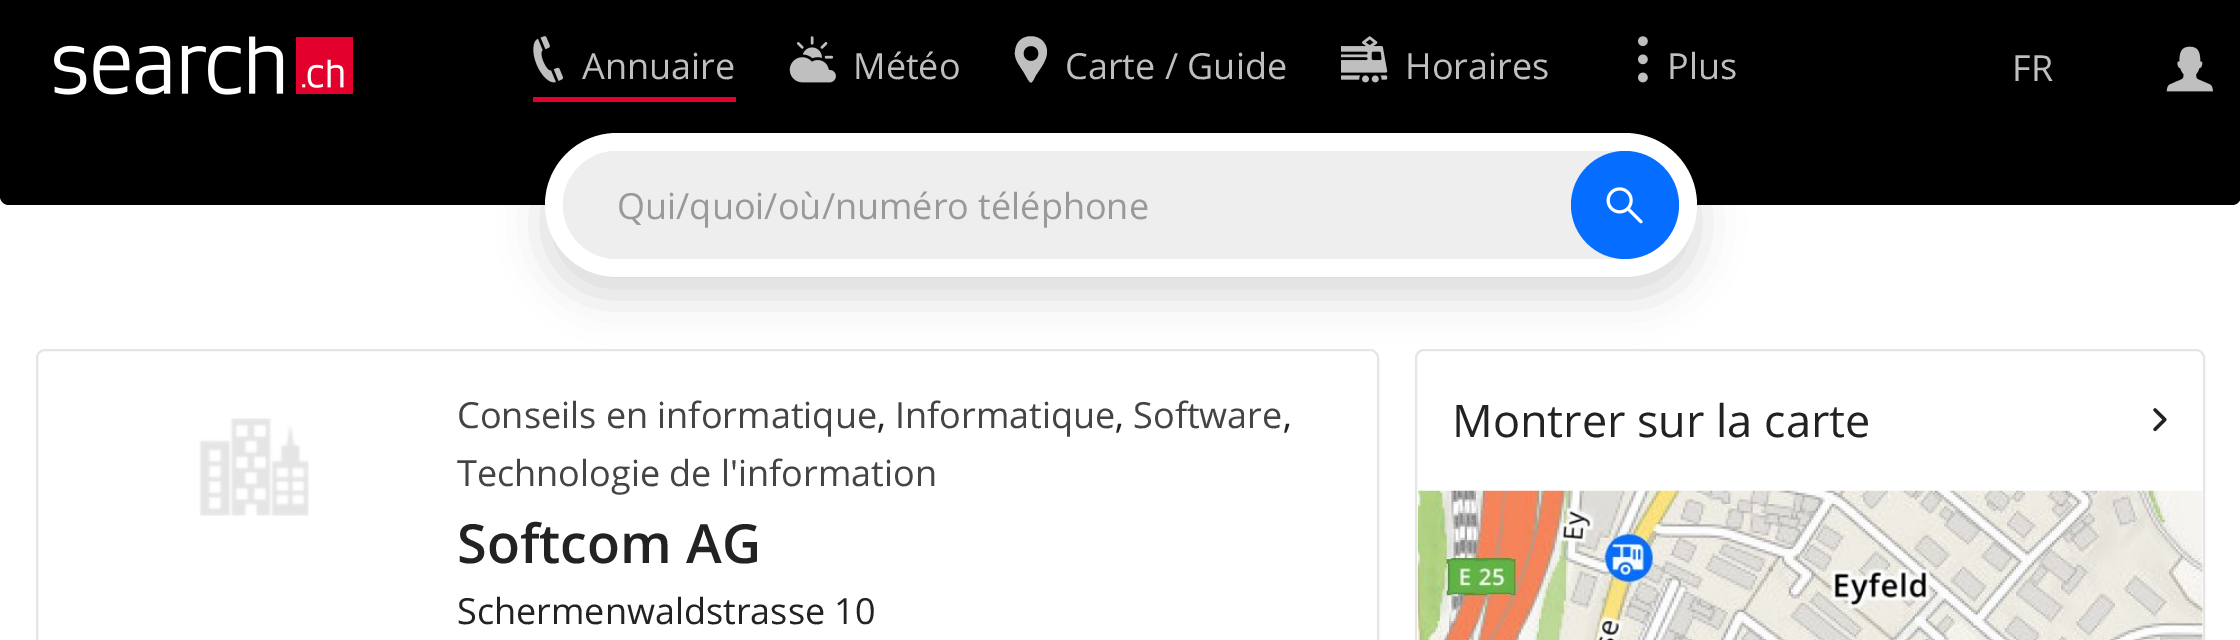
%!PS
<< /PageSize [2240 640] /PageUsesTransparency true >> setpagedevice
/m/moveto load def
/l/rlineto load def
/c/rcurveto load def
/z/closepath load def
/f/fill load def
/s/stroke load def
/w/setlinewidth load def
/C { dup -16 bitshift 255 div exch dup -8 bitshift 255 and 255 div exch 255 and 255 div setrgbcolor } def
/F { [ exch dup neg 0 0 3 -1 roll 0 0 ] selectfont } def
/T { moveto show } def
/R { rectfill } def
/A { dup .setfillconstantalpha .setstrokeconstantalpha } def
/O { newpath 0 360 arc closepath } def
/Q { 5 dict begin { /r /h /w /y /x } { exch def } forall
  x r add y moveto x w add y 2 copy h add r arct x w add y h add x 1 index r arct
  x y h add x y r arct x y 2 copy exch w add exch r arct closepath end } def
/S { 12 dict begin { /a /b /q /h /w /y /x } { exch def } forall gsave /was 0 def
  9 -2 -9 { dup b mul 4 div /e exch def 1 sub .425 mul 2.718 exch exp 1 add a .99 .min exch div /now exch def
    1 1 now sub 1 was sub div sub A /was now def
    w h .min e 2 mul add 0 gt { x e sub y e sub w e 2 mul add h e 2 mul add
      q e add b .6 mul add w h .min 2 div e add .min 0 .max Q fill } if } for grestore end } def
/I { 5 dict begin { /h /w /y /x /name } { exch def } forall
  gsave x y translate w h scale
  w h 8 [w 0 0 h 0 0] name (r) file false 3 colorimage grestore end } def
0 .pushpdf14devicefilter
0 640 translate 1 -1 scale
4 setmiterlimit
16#FFFFFF C
0 0 2240 640 R
16#000000 C
0 0 2240 133 R
(1.rgb) 54 36 299 59 I
16#E4002C C
533 97 203 5 R
(2.rgb) 533 36 30 47 I
/OpenSans-Regular 36 F
16#BFBFBF C
(Annuaire) 582 79 T
(3.rgb) 789 36 47 47 I
(Météo) 853 79 T
1047 52 m 0 -20 -31 -22 -32 0 c -1 7 5 14 8 19 c 8 13 7 16 13 4 c 4 -6 11 -15 11 -23 c z 1031 61 m -10 0 -10 -15 0 -15 c 10 0 10 15 0 15 c z f
(Carte / Guide) 1065 79 T
(4.rgb) 1341 36 47 47 I
(Horaires) 1405 79 T
(5.rgb) 1638 36 10 47 I
(Plus) 1667 79 T
(FR) 2012 81 T
(6.rgb) 2166 46 47 46 I
16#000000 C
0 133 m 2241 0 l 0 63 l 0 5 -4 9 -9 9 c -2223 0 l -5 0 -9 -4 -9 -9 c z f
16#E5E5E5 C
2 w
37 350 1341 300 8 Q s
1416 350 788 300 8 Q s
16#000000 C
545 151 1152 144 72 22.5 .15 S
16#FFFFFF C
545 133 1152 144 72 Q f
16#EEEEEE C
563 151 1116 108 54 Q f
563 151 1008 108 54 Q f
16#999999 C
(Qui/quoi/où/numéro téléphone) 617 219 T
16#056DFF C
1625 205 54 O f
(7.rgb) 1606 187 37 37 I
(8.rgb) 199 418 110 98 I
16#444444 C
(Conseils en informatique) 457 428 T
16#222222 C
(,) 877 428 T
16#444444 C
(Informatique) 895 428 T
16#222222 C
(,) 1115 428 T
16#444444 C
(Software) 1133 428 T
16#222222 C
(,) 1283 428 T
16#444444 C
(Technologie de l'information) 457 486 T
/OpenSans-SemiBold 54 F
16#222222 C
(Softcom AG) 457 563 T
/OpenSans-Regular 36 F
(Schermenwaldstrasse 10) 457 624 T
/OpenSans-Regular 45 F
(Montrer sur la carte) 1452 437 T
(9.rgb) 2153 408 14 24 I
(10.rgb) 1417 490 786 150 I
.poppdf14devicefilter showpage
